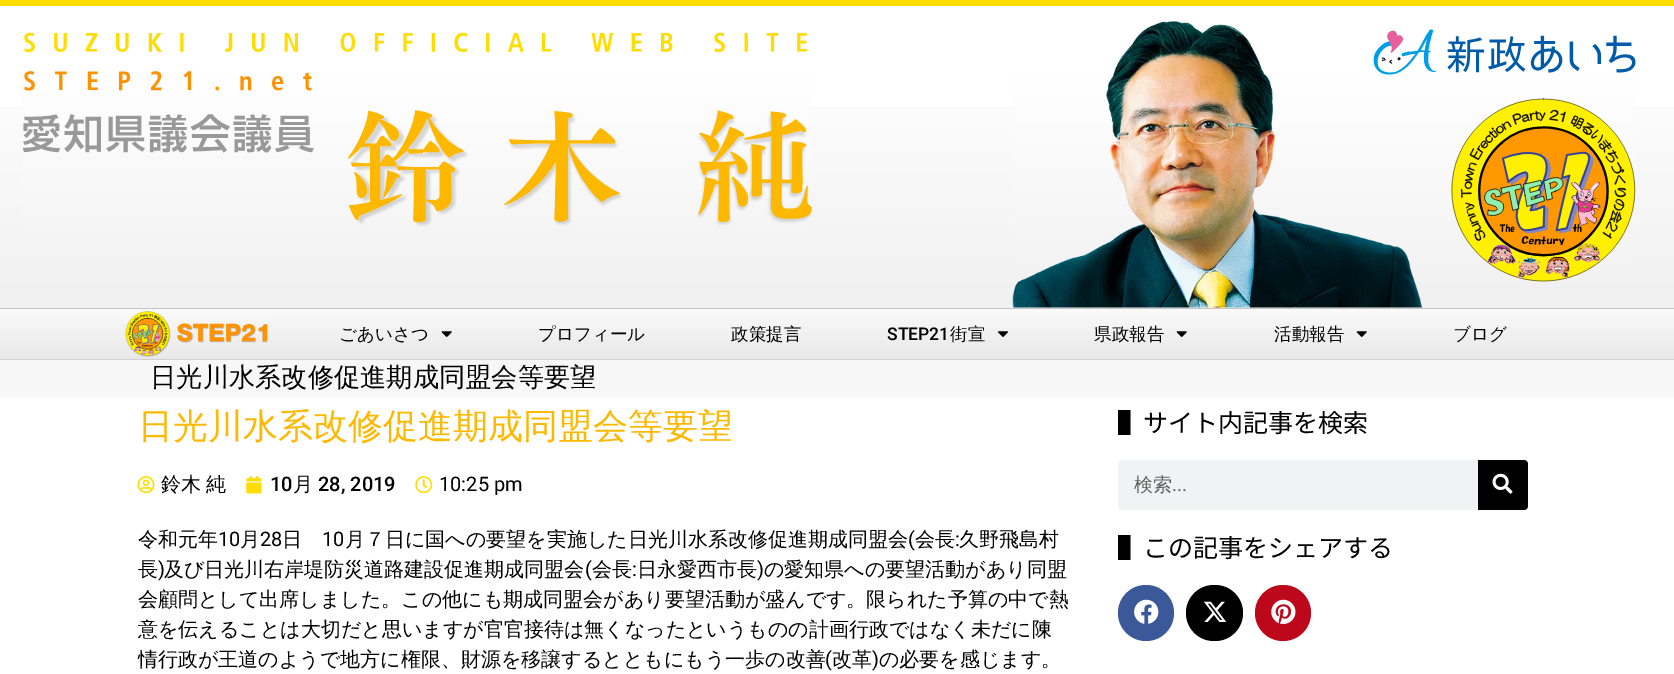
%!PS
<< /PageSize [1674 674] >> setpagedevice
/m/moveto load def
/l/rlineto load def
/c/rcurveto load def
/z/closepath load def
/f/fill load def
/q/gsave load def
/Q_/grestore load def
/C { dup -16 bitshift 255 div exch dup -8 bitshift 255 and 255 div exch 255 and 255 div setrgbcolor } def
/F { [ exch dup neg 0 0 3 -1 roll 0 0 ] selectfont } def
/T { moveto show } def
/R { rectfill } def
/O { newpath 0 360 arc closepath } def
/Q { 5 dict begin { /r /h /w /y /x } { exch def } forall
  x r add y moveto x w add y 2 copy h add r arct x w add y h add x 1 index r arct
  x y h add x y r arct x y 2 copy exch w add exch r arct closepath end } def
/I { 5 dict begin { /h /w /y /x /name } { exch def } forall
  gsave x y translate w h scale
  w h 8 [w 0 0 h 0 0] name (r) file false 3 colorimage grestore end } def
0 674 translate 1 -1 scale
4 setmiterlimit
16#FFFFFF C
0 0 1674 674 R
q 0 107 m 1674 0 l 0 201 l -1674 0 l z clip newpath
<< /ShadingType 2 /ColorSpace /DeviceRGB /Coords [838 6.2 838 308] /Extend [true true] /Function << /FunctionType 3 /Domain [0 1] /Functions [<< /FunctionType 2 /Domain [0 1] /C0 [1 1 1] /C1 [1 1 1] /N 1 >> << /FunctionType 2 /Domain [0 1] /C0 [1 1 1] /C1 [.945 .945 .945] /N 1 >> << /FunctionType 2 /Domain [0 1] /C0 [.945 .945 .945] /C1 [.945 .945 .945] /N 1 >>] /Bounds [.2 .95] /Encode [0 1 0 1 0 1] >> >> shfill Q_
16#FFDD00 C
0 0 1674 6 R
(1.rgb) 1012 21 411 287 I
(2.rgb) 22 32 790 194 I
(3.rgb) 1373 29 263 253 I
q 0 309 m 1674 0 l 0 50 l -1674 0 l z clip newpath
<< /ShadingType 2 /ColorSpace /DeviceRGB /Coords [838 309 838 359] /Extend [true true] /Function << /FunctionType 2 /Domain [0 1] /C0 [.98 .98 .98] /C1 [.91 .91 .91] /N 1 >> >> shfill Q_
16#C5C5C5 C
0 308 1674 1 R
16#D2D2D2 C
0 359 1674 1 R
(4.rgb) 125 311 143 46 I
/WenQuanYiZenHei-Medium 17.5 F
16#000000 C
(ごあいさつ) 339 340 T
(5.rgb) 441 331 11 6 I
(プロフィール) 538 340 T
(政策提言) 731 340 T
/Roboto-Medium 17.5 F
(STEP21) 887 340 T
/WenQuanYiZenHei-Medium 17.5 F
(街宣) 950 340 T
(6.rgb) 997 331 11 6 I
(県政報告) 1094 340 T
(5.rgb) 1176 331 11 6 I
(活動報告) 1274 340 T
(5.rgb) 1356 331 11 6 I
(ブログ) 1453 340 T
16#F7F7F7 C
0 360 1674 38 R
/WenQuanYiZenHei-Medium 26.25 F
16#000000 C
(日光川水系改修促進期成同盟会等要望) 150 386 T
/WenQuanYiZenHei-Medium 35 F
16#FFB800 C
(日光川水系改修促進期成同盟会等要望) 138 438 T
(7.rgb) 137 476 18 18 I
/WenQuanYiZenHei-Medium 20 F
16#000000 C
161 491 m -1 0 32 (鈴木 純) widthshow
(8.rgb) 246 475 16 19 I
/Roboto-Medium 20 F
(10) 270 491 T
/WenQuanYiZenHei-Medium 20 F
(月) 293 491 T
/Roboto-Medium 20 F
(28, 2019) 318 491 T
(9.rgb) 415 476 18 18 I
/Roboto-Regular 20 F
(10:25 pm) 439 491 T
/WenQuanYiZenHei-Medium 20 F
(令和元年) 138 546 T
/Roboto-Regular 20 F
(10) 218 546 T
/WenQuanYiZenHei-Medium 20 F
(月) 240 546 T
/Roboto-Regular 20 F
(28) 260 546 T
/WenQuanYiZenHei-Medium 20 F
(日) 282 546 T
/Roboto-Regular 20 F
(10) 322 546 T
/WenQuanYiZenHei-Medium 20 F
(月７日に国への要望を実施した日光川水系改修促進期成同盟会) 345 546 T
/Roboto-Regular 20 F
(\() 908 546 T
/WenQuanYiZenHei-Medium 20 F
(会長) 915 546 T
/Roboto-Regular 20 F
(:) 955 546 T
/WenQuanYiZenHei-Medium 20 F
(久野飛島村) 959 546 T
(長) 138 576 T
/Roboto-Regular 20 F
(\)) 158 576 T
/WenQuanYiZenHei-Medium 20 F
(及び日光川右岸堤防災道路建設促進期成同盟会) 164 576 T
/Roboto-Regular 20 F
(\() 585 576 T
/WenQuanYiZenHei-Medium 20 F
(会長) 592 576 T
/Roboto-Regular 20 F
(:) 632 576 T
/WenQuanYiZenHei-Medium 20 F
(日永愛西市長) 637 576 T
/Roboto-Regular 20 F
(\)) 757 576 T
/WenQuanYiZenHei-Medium 20 F
(の愛知県への要望活動があり同盟) 764 576 T
(会顧問として出席しました。この他にも期成同盟会があり要望活動が盛んです。限られた予算の中で熱) 138 606 T
(意を伝えることは大切だと思いますが官官接待は無くなったというものの計画行政ではなく未だに陳) 138 636 T
(情行政が王道のようで地方に権限、財源を移譲するとともにもう一歩の改善) 138 666 T
/Roboto-Regular 20 F
(\() 825 666 T
/WenQuanYiZenHei-Medium 20 F
(改革) 832 666 T
/Roboto-Regular 20 F
(\)) 872 666 T
/WenQuanYiZenHei-Medium 20 F
(の必要を感じます。) 879 666 T
/NotoSansJP-Regular 25 F
(▌サイト内記事を検索) 1118 432 T
16#F1F2F3 C
1118 460 410 50 4 Q f
/WenQuanYiZenHei-Medium 19 F
16#606161 C
(検索) 1134 491 T
/Roboto-Regular 19 F
(...) 1172 491 T
16#000000 C
1478 460 m 46 0 l 2 0 4 2 4 4 c 0 42 l 0 2 -2 4 -4 4 c -46 0 l z f
(10.rgb) 1492 473 21 21 I
/NotoSansJP-Regular 25 F
(▌この記事をシェアする) 1118 557 T
16#3B5998 C
1146 613 28 O f
(11.rgb) 1134 599 25 25 I
16#000000 C
1186 585 57 56 28 Q f
(12.rgb) 1204 601 23 21 I
16#BD081C C
1283 613 28 O f
(13.rgb) 1271 599 25 25 I
showpage
